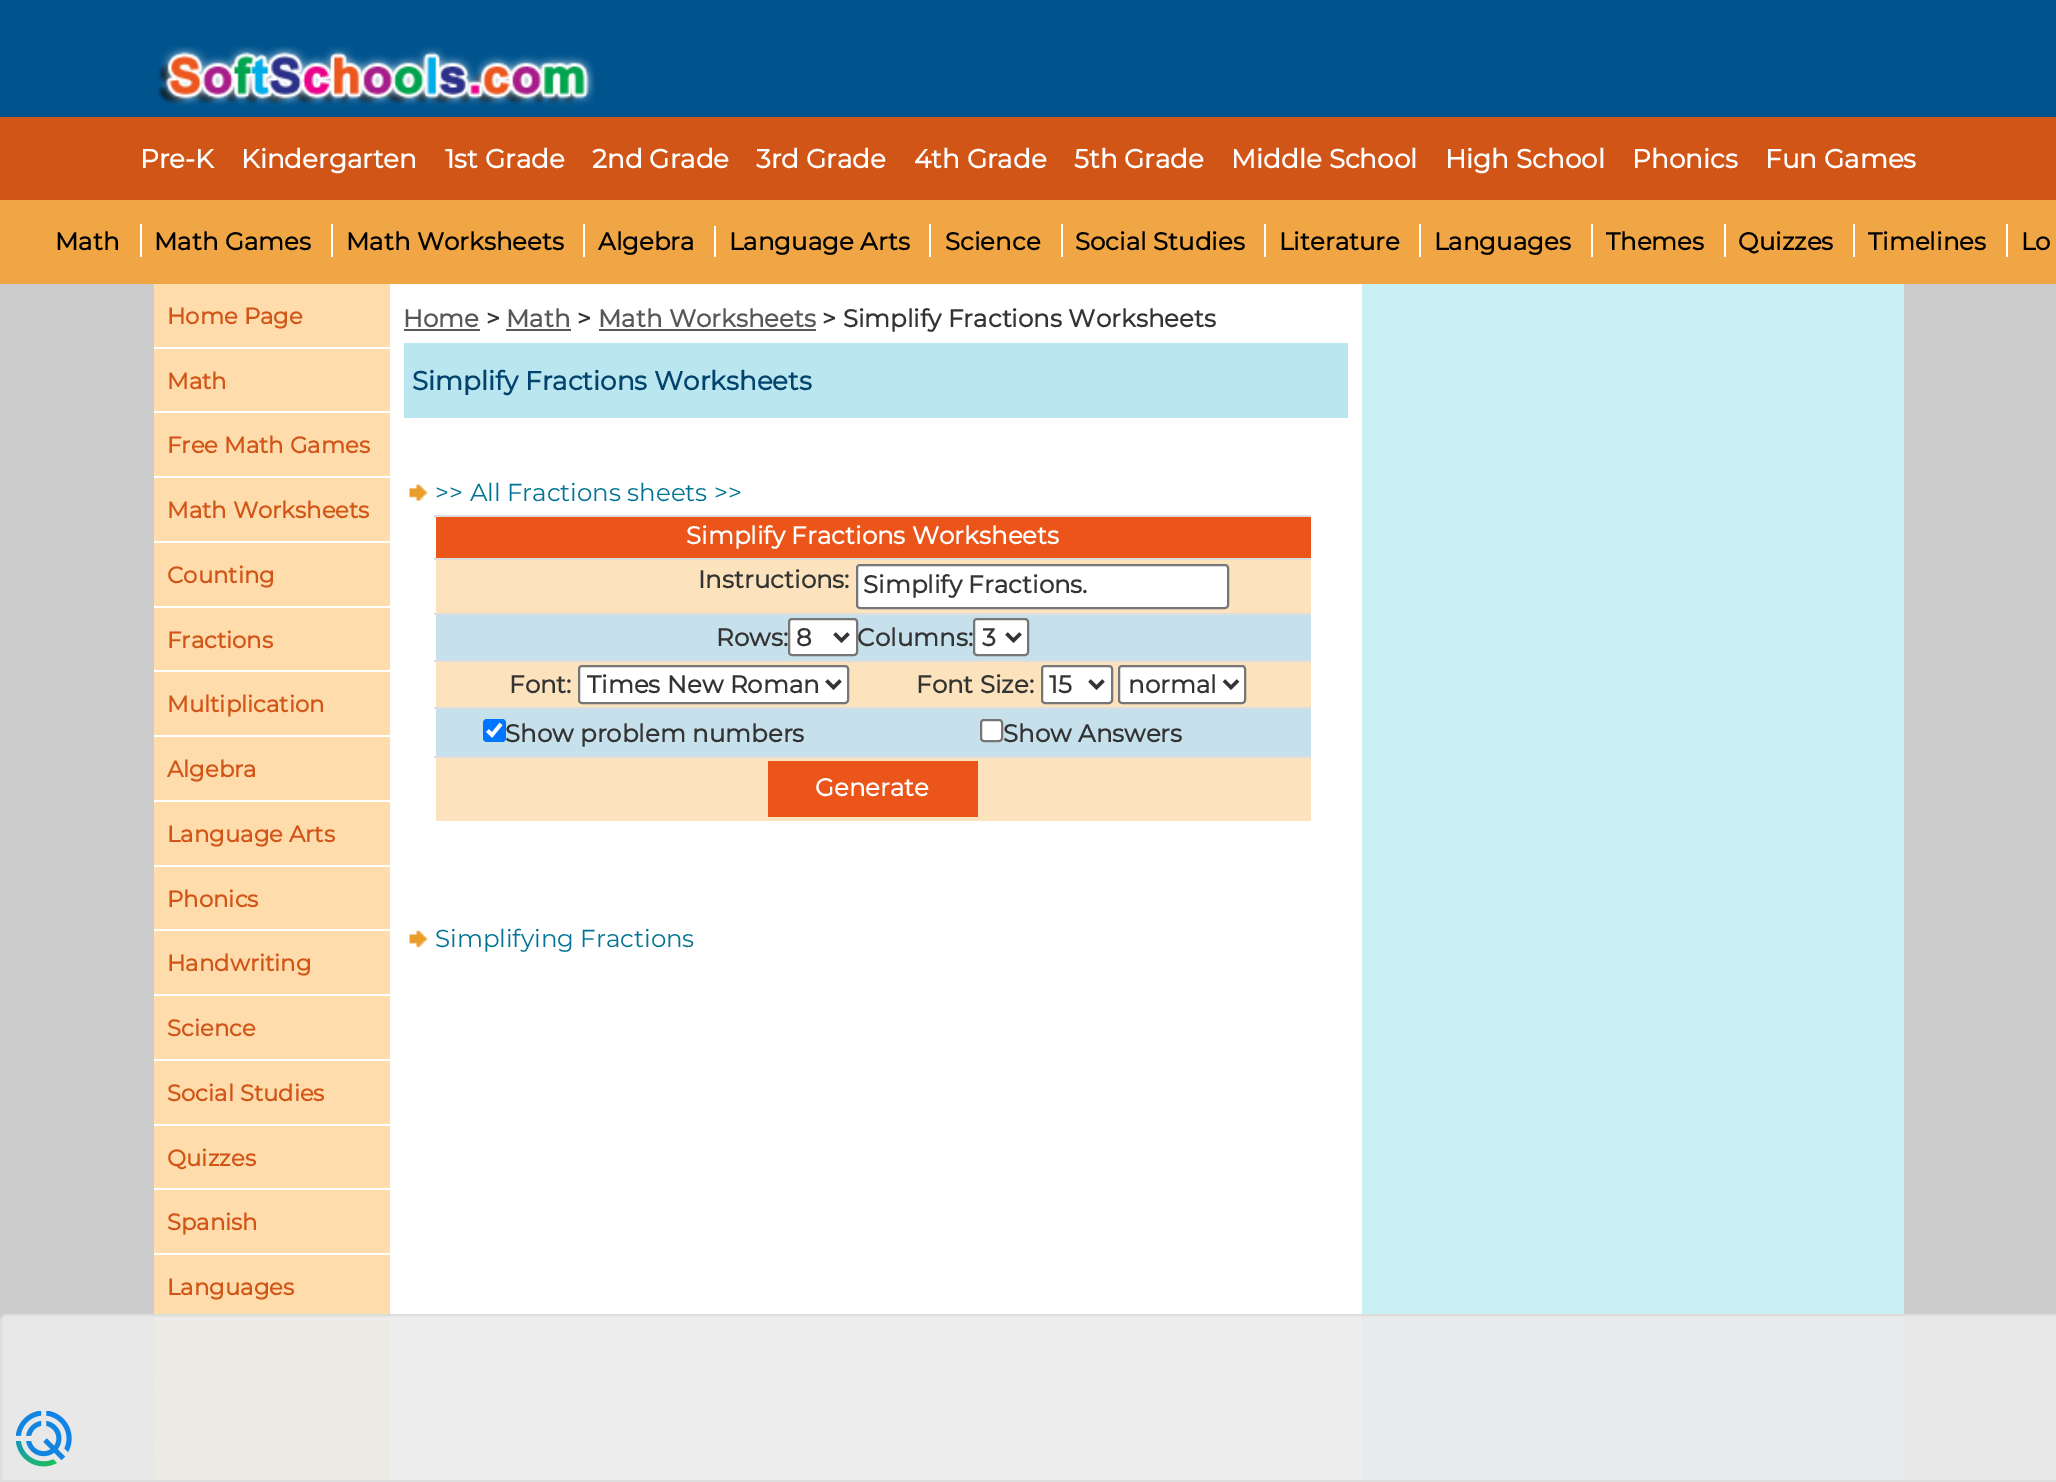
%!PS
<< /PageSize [2056 1482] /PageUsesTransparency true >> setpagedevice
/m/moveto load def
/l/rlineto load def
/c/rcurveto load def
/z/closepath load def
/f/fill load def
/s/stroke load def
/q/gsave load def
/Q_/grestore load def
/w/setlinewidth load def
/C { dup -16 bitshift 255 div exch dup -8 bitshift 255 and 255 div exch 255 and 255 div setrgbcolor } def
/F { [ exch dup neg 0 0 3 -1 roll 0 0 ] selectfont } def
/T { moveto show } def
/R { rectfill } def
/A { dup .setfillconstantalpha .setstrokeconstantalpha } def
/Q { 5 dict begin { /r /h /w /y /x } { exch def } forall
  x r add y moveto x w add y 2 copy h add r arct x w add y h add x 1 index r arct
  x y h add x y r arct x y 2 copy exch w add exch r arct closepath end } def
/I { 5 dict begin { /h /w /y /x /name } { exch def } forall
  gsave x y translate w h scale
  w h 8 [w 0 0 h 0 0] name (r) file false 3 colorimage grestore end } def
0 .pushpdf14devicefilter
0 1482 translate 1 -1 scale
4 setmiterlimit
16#CCCCCC C
0 0 2056 1482 R
16#00548E C
0 0 2056 117 R
(1.rgb) 157 46 438 60 I
16#D15517 C
0 117 2056 83 R
/Montserrat-Bold 26.25 F
16#FFFFFF C
(Pre-K) 140 168 T
(Kindergarten) 241 168 T
(1st Grade) 445 168 T
(2nd Grade) 592 168 T
(3rd Grade) 756 168 T
(4th Grade) 914 168 T
(5th Grade) 1074 168 T
(Middle School) 1231 168 T
(High School) 1445 168 T
(Phonics) 1632 168 T
(Fun Games) 1765 168 T
16#F0A644 C
0 200 2056 84 R
/Montserrat-Bold 24.5 F
16#000000 C
(Math) 55 250 T
(Math Games) 154 250 T
16#FFFFFF C
140 224 2 33 R
16#000000 C
(Math Worksheets) 346 250 T
16#FFFFFF C
331 224 2 33 R
16#000000 C
(Algebra) 598 250 T
16#FFFFFF C
583 224 2 33 R
16#000000 C
(Language Arts) 729 250 T
16#FFFFFF C
714 226 2 31 R
16#000000 C
(Science) 945 250 T
16#FFFFFF C
929 224 2 33 R
16#000000 C
(Social Studies) 1075 250 T
16#FFFFFF C
1061 224 2 33 R
16#000000 C
(Literature) 1279 250 T
16#FFFFFF C
1264 224 2 33 R
16#000000 C
(Languages) 1434 250 T
16#FFFFFF C
1419 224 2 33 R
16#000000 C
(Themes) 1606 250 T
16#FFFFFF C
1591 224 2 33 R
16#000000 C
(Quizzes) 1738 250 T
16#FFFFFF C
1724 224 2 33 R
16#000000 C
(Timelines) 1868 250 T
16#FFFFFF C
1853 224 2 33 R
16#000000 C
(Lo) 2021 250 T
16#FFFFFF C
2006 224 2 33 R
390 284 972 1196 R
16#FEDCAB C
154 284 236 1196 R
16#FFFFFF C
154 347 236 2 R
/Montserrat-Bold 22.75 F
16#D15517 C
(Home Page) 167 324 T
16#FFFFFF C
154 411 236 2 R
16#D15517 C
(Math) 167 389 T
16#FFFFFF C
154 476 236 2 R
16#D15517 C
(Free Math Games) 167 453 T
16#FFFFFF C
154 541 236 2 R
16#D15517 C
(Math Worksheets) 167 518 T
16#FFFFFF C
154 606 236 2 R
16#D15517 C
(Counting) 167 583 T
16#FFFFFF C
154 670 236 2 R
16#D15517 C
(Fractions) 167 648 T
16#FFFFFF C
154 735 236 2 R
16#D15517 C
(Multiplication) 167 712 T
16#FFFFFF C
154 800 236 2 R
16#D15517 C
(Algebra) 167 777 T
16#FFFFFF C
154 865 236 2 R
16#D15517 C
(Language Arts) 167 842 T
16#FFFFFF C
154 929 236 2 R
16#D15517 C
(Phonics) 167 907 T
16#FFFFFF C
154 994 236 2 R
16#D15517 C
(Handwriting) 167 971 T
16#FFFFFF C
154 1059 236 2 R
16#D15517 C
(Science) 167 1036 T
16#FFFFFF C
154 1124 236 2 R
16#D15517 C
(Social Studies) 167 1101 T
16#FFFFFF C
154 1188 236 2 R
16#D15517 C
(Quizzes) 167 1166 T
16#FFFFFF C
154 1253 236 2 R
16#D15517 C
(Spanish) 167 1230 T
16#FFFFFF C
154 1318 236 2 R
16#D15517 C
(Languages) 167 1295 T
16#FFFFFF C
154 1383 236 2 R
154 1447 236 2 R
/Montserrat-Bold 24.5 F
16#575757 C
(Home) 403 327 T
404 329 76 2 R
16#333333 C
(>) 486 327 T
16#575757 C
(Math) 506 327 T
506 329 65 2 R
16#333333 C
(>) 577 327 T
16#575757 C
(Math Worksheets) 598 327 T
599 329 217 2 R
16#333333 C
(> Simplify Fractions Worksheets) 822 327 T
16#BAE6EF C
404 343 944 75 R
/Montserrat-Bold 26.25 F
16#01436D C
(Simplify Fractions Worksheets) 412 390 T
(2.rgb) 409 484 19 18 I
/Montserrat-Regular 24.5 F
16#037494 C
(>> All Fractions sheets >>) 435 501 T
16#FDE3BD C
436 560 875 261 R
16#EB551A C
436 517 875 41 R
16#DDDDDD C
434 515 877 2 R
/Montserrat-Bold 24.5 F
16#FFFFFF C
(Simplify Fractions Worksheets) 686 544 T
16#333333 C
(Instructions:) 698 588 T
16#DDDDDD C
434 558 877 2 R
16#FFFFFF C
857 565 371 43 3 Q q f Q_
16#767676 C
2 w
s
16#333333 C
(Simplify Fractions.) 863 593 T
16#C6E1EC C
436 615 875 45 R
16#DDDDDD C
434 613 877 2 R
16#333333 C
(Rows:) 716 646 T
16#FFFFFF C
789 619 68 36 3 Q q f Q_
16#767676 C
s
16#333333 C
3.5 w
834.5 633.5 m 7 7 l 7 -7 l s
(8) 796 646 T
(Columns:) 857 646 T
16#FFFFFF C
974 619 54 36 3 Q q f Q_
16#767676 C
2 w
s
16#333333 C
3.5 w
1006.5 633.5 m 7 7 l 7 -7 l s
(3) 982 646 T
(Font:) 509 693 T
16#FFFFFF C
579 666 269 37 3 Q q f Q_
16#767676 C
2 w
s
16#333333 C
3.5 w
826.5 680.5 m 7 7 l 7 -7 l s
(Times New Roman) 587 693 T
16#DDDDDD C
434 660 877 2 R
16#333333 C
(Font Size:) 916 693 T
16#FFFFFF C
1042 666 70 37 3 Q q f Q_
16#767676 C
2 w
s
16#333333 C
3.5 w
1089.5 680.5 m 7 7 l 7 -7 l s
(15) 1049 693 T
16#FFFFFF C
1119 666 126 37 3 Q q f Q_
16#767676 C
2 w
s
16#333333 C
3.5 w
1224 680.5 m 7 7 l 7 -7 l s
(normal) 1128 693 T
16#C6E1EC C
436 709 875 47 R
16#0075FF C
483 719 23 23 4 Q f
16#FFFFFF C
3.6 w
487.5 730.5 m 4.5 4.5 l 9 -11 l s
16#333333 C
(Show problem numbers) 505 742 T
16#DDDDDD C
434 707 877 2 R
16#FFFFFF C
981 720 21 21 3 Q q f Q_
16#767676 C
2 w
s
16#333333 C
(Show Answers) 1003 742 T
16#DDDDDD C
434 756 877 2 R
16#EB551A C
768 761 210 56 R
16#FFFFFF C
(Generate) 815 796 T
(3.rgb) 409 930 19 18 I
/Montserrat-Regular 24.5 F
16#037494 C
(Simplifying Fractions) 435 947 T
16#C8EFF2 C
1362 284 542 1196 R
0.89 A
16#EBEBEB C
7 1315 m 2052 0 l 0 166 l -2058 0 l 0 -160 l 0 -3.5 2.5 -6 6 -6 c z f
1 A
16#DDDDDD C
7 1315 m 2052 0 l 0 166 l -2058 0 l 0 -160 l 0 -3.5 2.5 -6 6 -6 c z s
(4.rgb) 16 1411 56 56 I
.poppdf14devicefilter showpage
